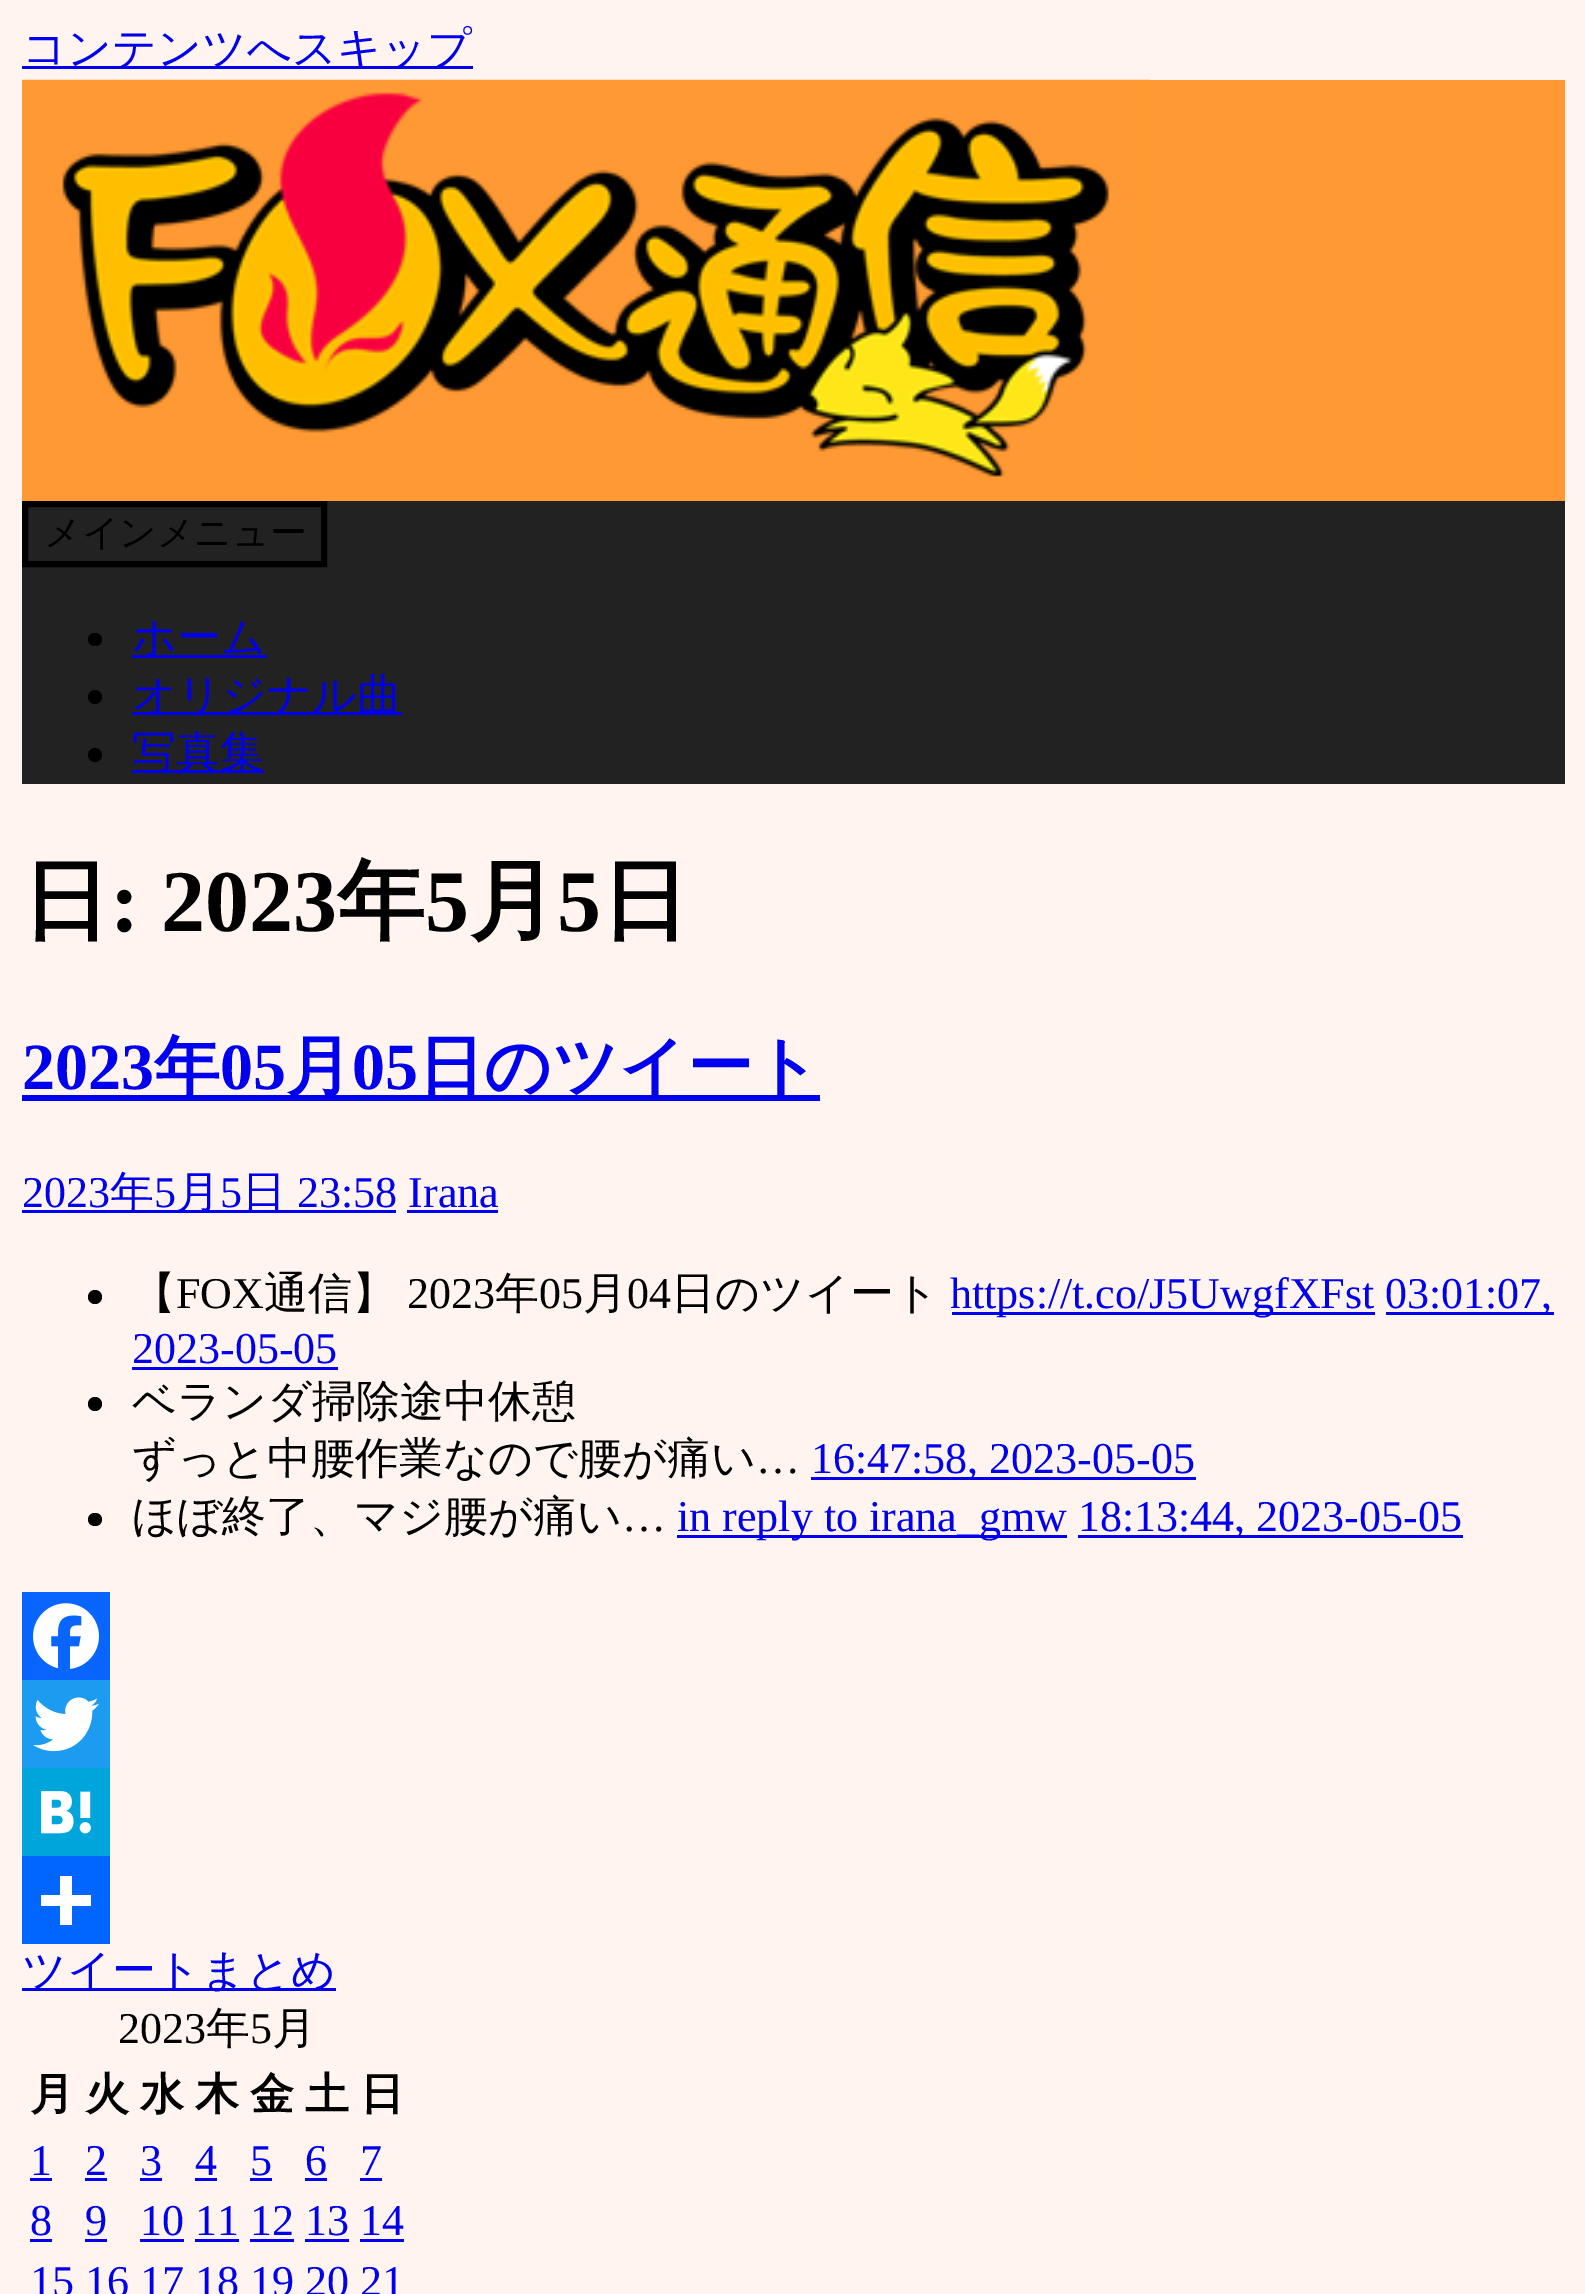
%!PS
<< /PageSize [1585 2294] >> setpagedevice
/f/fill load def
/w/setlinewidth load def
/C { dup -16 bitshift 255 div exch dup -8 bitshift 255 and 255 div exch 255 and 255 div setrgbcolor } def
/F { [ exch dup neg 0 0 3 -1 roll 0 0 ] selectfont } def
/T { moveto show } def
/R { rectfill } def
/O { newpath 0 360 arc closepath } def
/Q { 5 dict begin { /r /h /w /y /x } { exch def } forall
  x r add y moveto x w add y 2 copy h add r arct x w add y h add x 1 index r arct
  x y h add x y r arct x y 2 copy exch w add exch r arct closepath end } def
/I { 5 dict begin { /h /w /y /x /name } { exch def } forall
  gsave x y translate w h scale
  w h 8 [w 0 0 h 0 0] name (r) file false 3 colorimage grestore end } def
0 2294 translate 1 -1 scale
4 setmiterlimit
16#FFF4EF C
0 0 1585 2294 R
16#0000EE C
22 66 451 3 R
/WenQuanYiZenHei-Medium 44 F
(コンテンツへスキップ) 22 63 T
16#FF9933 C
22 80 1543 421 R
(1.rgb) 22 79 1128 398 I
16#222222 C
22 501 1543 283 R
16#000000 C
6 w
25 504 299 60 rectstroke
/WenQuanYiZenHei-Medium 36.75 F
(メインメニュー) 44 545 T
88 633 14 13 6.5 Q f
16#0000EE C
132 655 135 3 R
/WenQuanYiZenHei-Medium 44 F
(ホーム) 132 652 T
16#000000 C
95 697 7 O f
16#0000EE C
132 712 270 3 R
(オリジナル曲) 132 710 T
16#000000 C
95 755 7 O f
16#0000EE C
132 770 132 3 R
(写真集) 132 767 T
/WenQuanYiZenHei-Bold 88 F
16#000000 C
(日) 22 931 T
/LiberationSerif-Bold 88 F
(: 2023) 110 931 T
/WenQuanYiZenHei-Bold 88 F
(年) 337 931 T
/LiberationSerif-Bold 88 F
(5) 425 931 T
/WenQuanYiZenHei-Bold 88 F
(月) 469 931 T
/LiberationSerif-Bold 88 F
(5) 557 931 T
/WenQuanYiZenHei-Bold 88 F
(日) 601 931 T
/LiberationSerif-Bold 66 F
16#0000EE C
(2023) 22 1089 T
22 1095 798 6 R
/WenQuanYiZenHei-Bold 66 F
(年) 154 1089 T
/LiberationSerif-Bold 66 F
(05) 220 1089 T
/WenQuanYiZenHei-Bold 66 F
(月) 286 1089 T
/LiberationSerif-Bold 66 F
(05) 352 1089 T
/WenQuanYiZenHei-Bold 66 F
(日のツイート) 418 1089 T
/LiberationSerif-Regular 44 F
(2023) 22 1207 T
22 1210 374 3 R
/WenQuanYiZenHei-Medium 44 F
(年) 110 1207 T
/LiberationSerif-Regular 44 F
(5) 154 1207 T
/WenQuanYiZenHei-Medium 44 F
(月) 176 1207 T
/LiberationSerif-Regular 44 F
(5) 220 1207 T
/WenQuanYiZenHei-Medium 44 F
(日) 242 1207 T
/LiberationSerif-Regular 44 F
(23:58 Irana) 297 1207 T
407 1210 91 3 R
16#000000 C
95 1297 7 O f
/WenQuanYiZenHei-Medium 44 F
(【) 132 1308 T
/LiberationSerif-Regular 44 F
(FOX) 176 1308 T
/WenQuanYiZenHei-Medium 44 F
(通信】) 264 1308 T
/LiberationSerif-Regular 44 F
(2023) 407 1308 T
/WenQuanYiZenHei-Medium 44 F
(年) 495 1308 T
/LiberationSerif-Regular 44 F
(05) 539 1308 T
/WenQuanYiZenHei-Medium 44 F
(月) 583 1308 T
/LiberationSerif-Regular 44 F
(04) 627 1308 T
/WenQuanYiZenHei-Medium 44 F
(日のツイート) 671 1308 T
16#0000EE C
952 1312 423 3 R
/LiberationSerif-Regular 44 F
(https://t.co/J5UwgfXFst) 950 1308 T
1386 1312 168 3 R
(03:01:07,) 1385 1308 T
(2023-05-05) 132 1363 T
132 1367 206 3 R
16#000000 C
95 1404 7 O f
/WenQuanYiZenHei-Medium 44 F
(ベランダ掃除途中休憩) 132 1416 T
(ずっと中腰作業なので腰が痛い) 132 1473 T
/LiberationSerif-Regular 44 F
(…) 756 1473 T
16#0000EE C
811 1477 385 3 R
(16:47:58, 2023-05-05) 811 1473 T
16#000000 C
88 1513 14 13 6.5 Q f
/WenQuanYiZenHei-Medium 44 F
(ほぼ終了、マジ腰が痛い) 132 1531 T
16#0000EE C
677 1535 390 3 R
/LiberationSerif-Regular 44 F
(in reply to irana_gmw) 677 1531 T
1078 1535 385 3 R
(18:13:44, 2023-05-05) 1078 1531 T
16#000000 C
(…) 622 1531 T
16#0866FF C
22 1592 88 88 R
(2.rgb) 33 1603 66 66 I
16#1D9BF0 C
22 1680 88 88 R
(3.rgb) 33 1697 66 55 I
16#00A6DB C
22 1768 88 88 R
(4.rgb) 41 1791 50 43 I
16#0166FF C
22 1856 88 88 R
16#FFFFFF C
60 1876 12 49 R
41 1895 50 11 R
16#0000EE C
22 1988 314 3 R
/WenQuanYiZenHei-Medium 44 F
(ツイートまとめ) 22 1985 T
/LiberationSerif-Regular 44 F
16#000000 C
(2023) 118 2043 T
/WenQuanYiZenHei-Medium 44 F
(年) 206 2043 T
/LiberationSerif-Regular 44 F
(5) 250 2043 T
/WenQuanYiZenHei-Medium 44 F
(月) 272 2043 T
/WenQuanYiZenHei-Bold 44 F
(月) 30 2109 T
(火) 85 2109 T
(水) 140 2109 T
(木) 195 2109 T
(金) 250 2109 T
(土) 305 2109 T
(日) 360 2109 T
/LiberationSerif-Regular 44 F
16#0000EE C
(1) 30 2175 T
30 2178 22 3 R
(2) 85 2175 T
85 2178 22 3 R
(3) 140 2175 T
140 2178 22 3 R
(4) 195 2175 T
195 2178 22 3 R
(5) 250 2175 T
250 2178 22 3 R
(6) 305 2175 T
305 2178 22 3 R
(7) 360 2175 T
360 2178 22 3 R
(8) 30 2235 T
30 2239 22 3 R
(9) 85 2235 T
85 2239 22 3 R
(10 11 12 13 14) 140 2235 T
140 2239 44 3 R
195 2239 44 3 R
250 2239 44 3 R
305 2239 44 3 R
360 2239 44 3 R
(15 16 17 18 19 20 21) 30 2296 T
showpage
